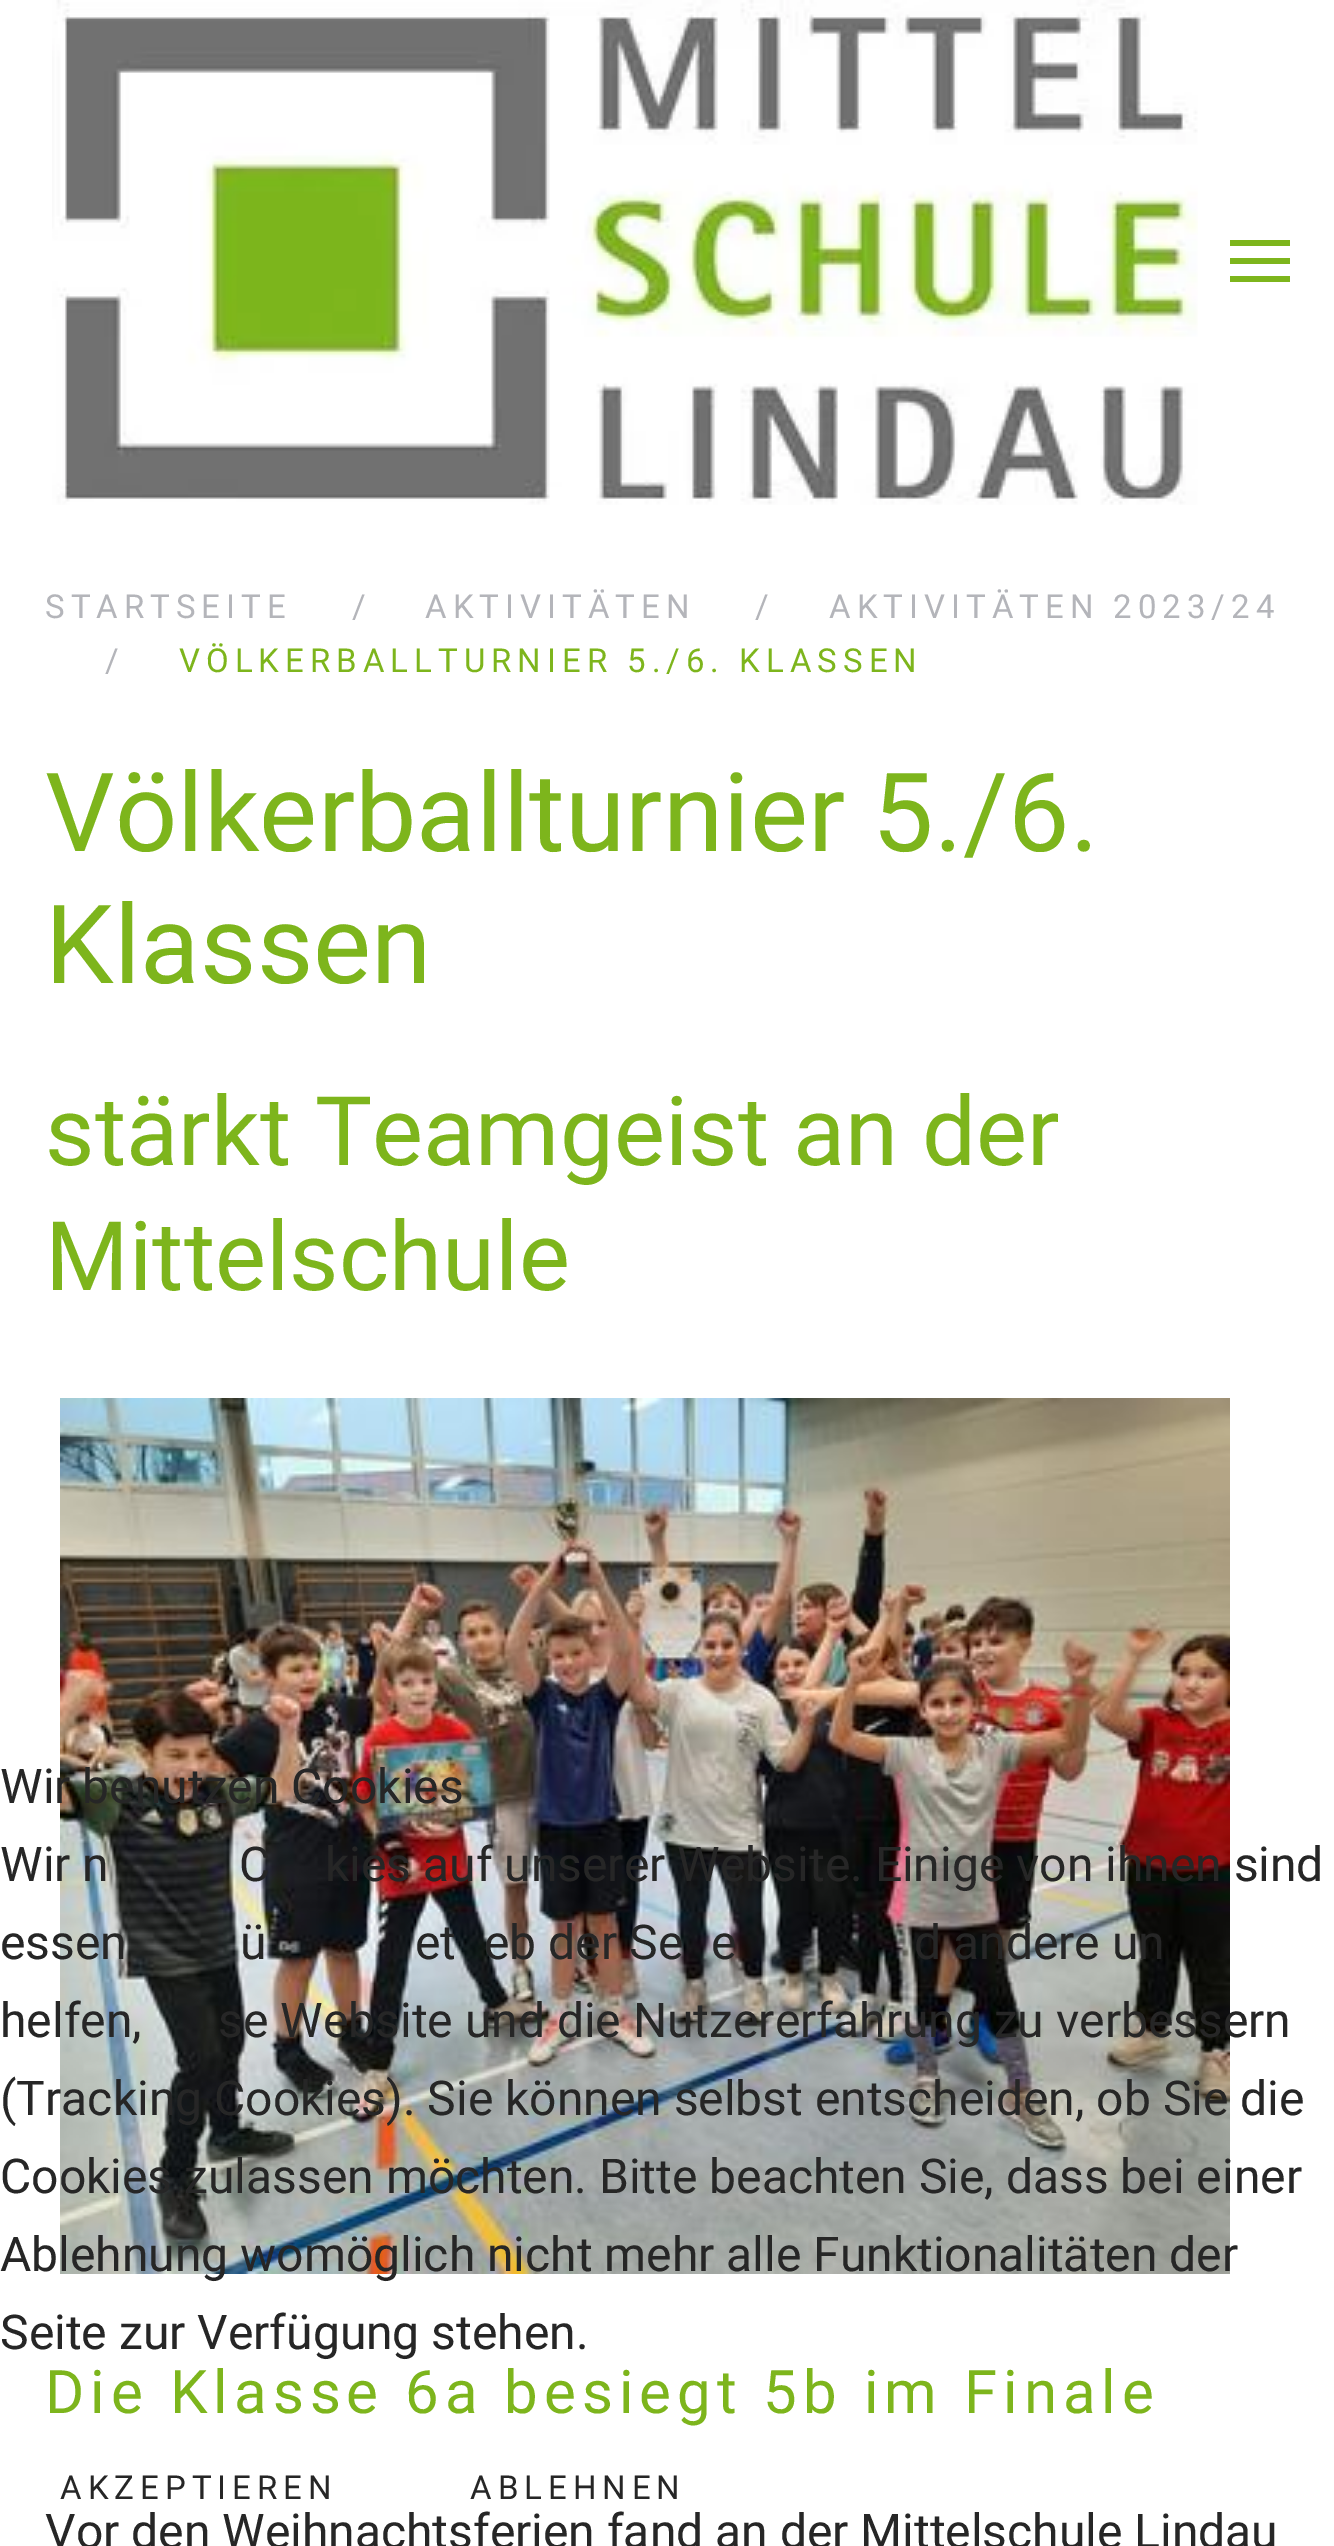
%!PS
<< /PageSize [1334 2546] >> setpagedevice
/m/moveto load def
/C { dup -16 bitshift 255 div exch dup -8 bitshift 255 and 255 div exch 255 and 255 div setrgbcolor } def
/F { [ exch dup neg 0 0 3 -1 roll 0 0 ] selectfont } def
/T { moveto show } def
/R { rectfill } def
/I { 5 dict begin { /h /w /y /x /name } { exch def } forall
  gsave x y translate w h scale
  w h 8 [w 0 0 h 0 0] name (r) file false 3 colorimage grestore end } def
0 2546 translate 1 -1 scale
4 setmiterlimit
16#FFFFFF C
0 0 1334 2546 R
(1.rgb) 52 0 1146 505 I
16#7DB51C C
1230 240 60 6 R
1230 258 60 6 R
1230 276 60 6 R
/Roboto-Regular 33 F
16#B4B5BA C
45 618 m 6 0 (STARTSEITE) ashow
(/) 352 618 T
425 618 m 6 0 (AKTIVITÄTEN) ashow
(/) 755 618 T
829 618 m 6 0 (AKTIVITÄTEN 2023/24) ashow
(/) 105 672 T
16#7DB51C C
179 672 m 6 0 (VÖLKERBALLTURNIER 5./6. KLASSEN) ashow
/Roboto-Regular 109.6 F
(Völkerballturnier 5./6.) 45 851 T
(Klassen) 45 983 T
/Roboto-Regular 96.1 F
(stärkt Teamgeist an der) 45 1165 T
(Mittelschule) 45 1290 T
(2.rgb) 60 1398 1170 876 I
/Roboto-Regular 60 F
45 2413 m 6 0 (Die Klasse 6a besiegt 5b im Finale) ashow
/Roboto-Regular 48 F
16#262626 C
(Vor den Weihnachtsferien fand an der Mittelschule Lindau) 45 2548 T
(Wir benutzen Cookies) 0 1803 T
(Wir n) 0 1881 T
(C) 239 1881 T
(kies auf unserer Website. Einige von ihnen sind) 325 1881 T
(essen) 0 1959 T
(ü) 240 1959 T
(et) 415 1959 T
(eb der Se) 484 1959 T
(e) 711 1959 T
(d andere un) 914 1959 T
(helfen,) 0 2037 T
(se Website und die Nutzererfahrung zu verbessern) 218 2037 T
(\(Tracking Cookies\). Sie können selbst entscheiden, ob Sie die) 0 2115 T
(Cookies zulassen möchten. Bitte beachten Sie, dass bei einer) 0 2193 T
(Ablehnung womöglich nicht mehr alle Funktionalitäten der) 0 2271 T
(Seite zur Verfügung stehen.) 0 2349 T
/Roboto-Regular 33 F
60 2499 m 6 0 (AKZEPTIEREN) ashow
470 2499 m 6 0 (ABLEHNEN) ashow
showpage
